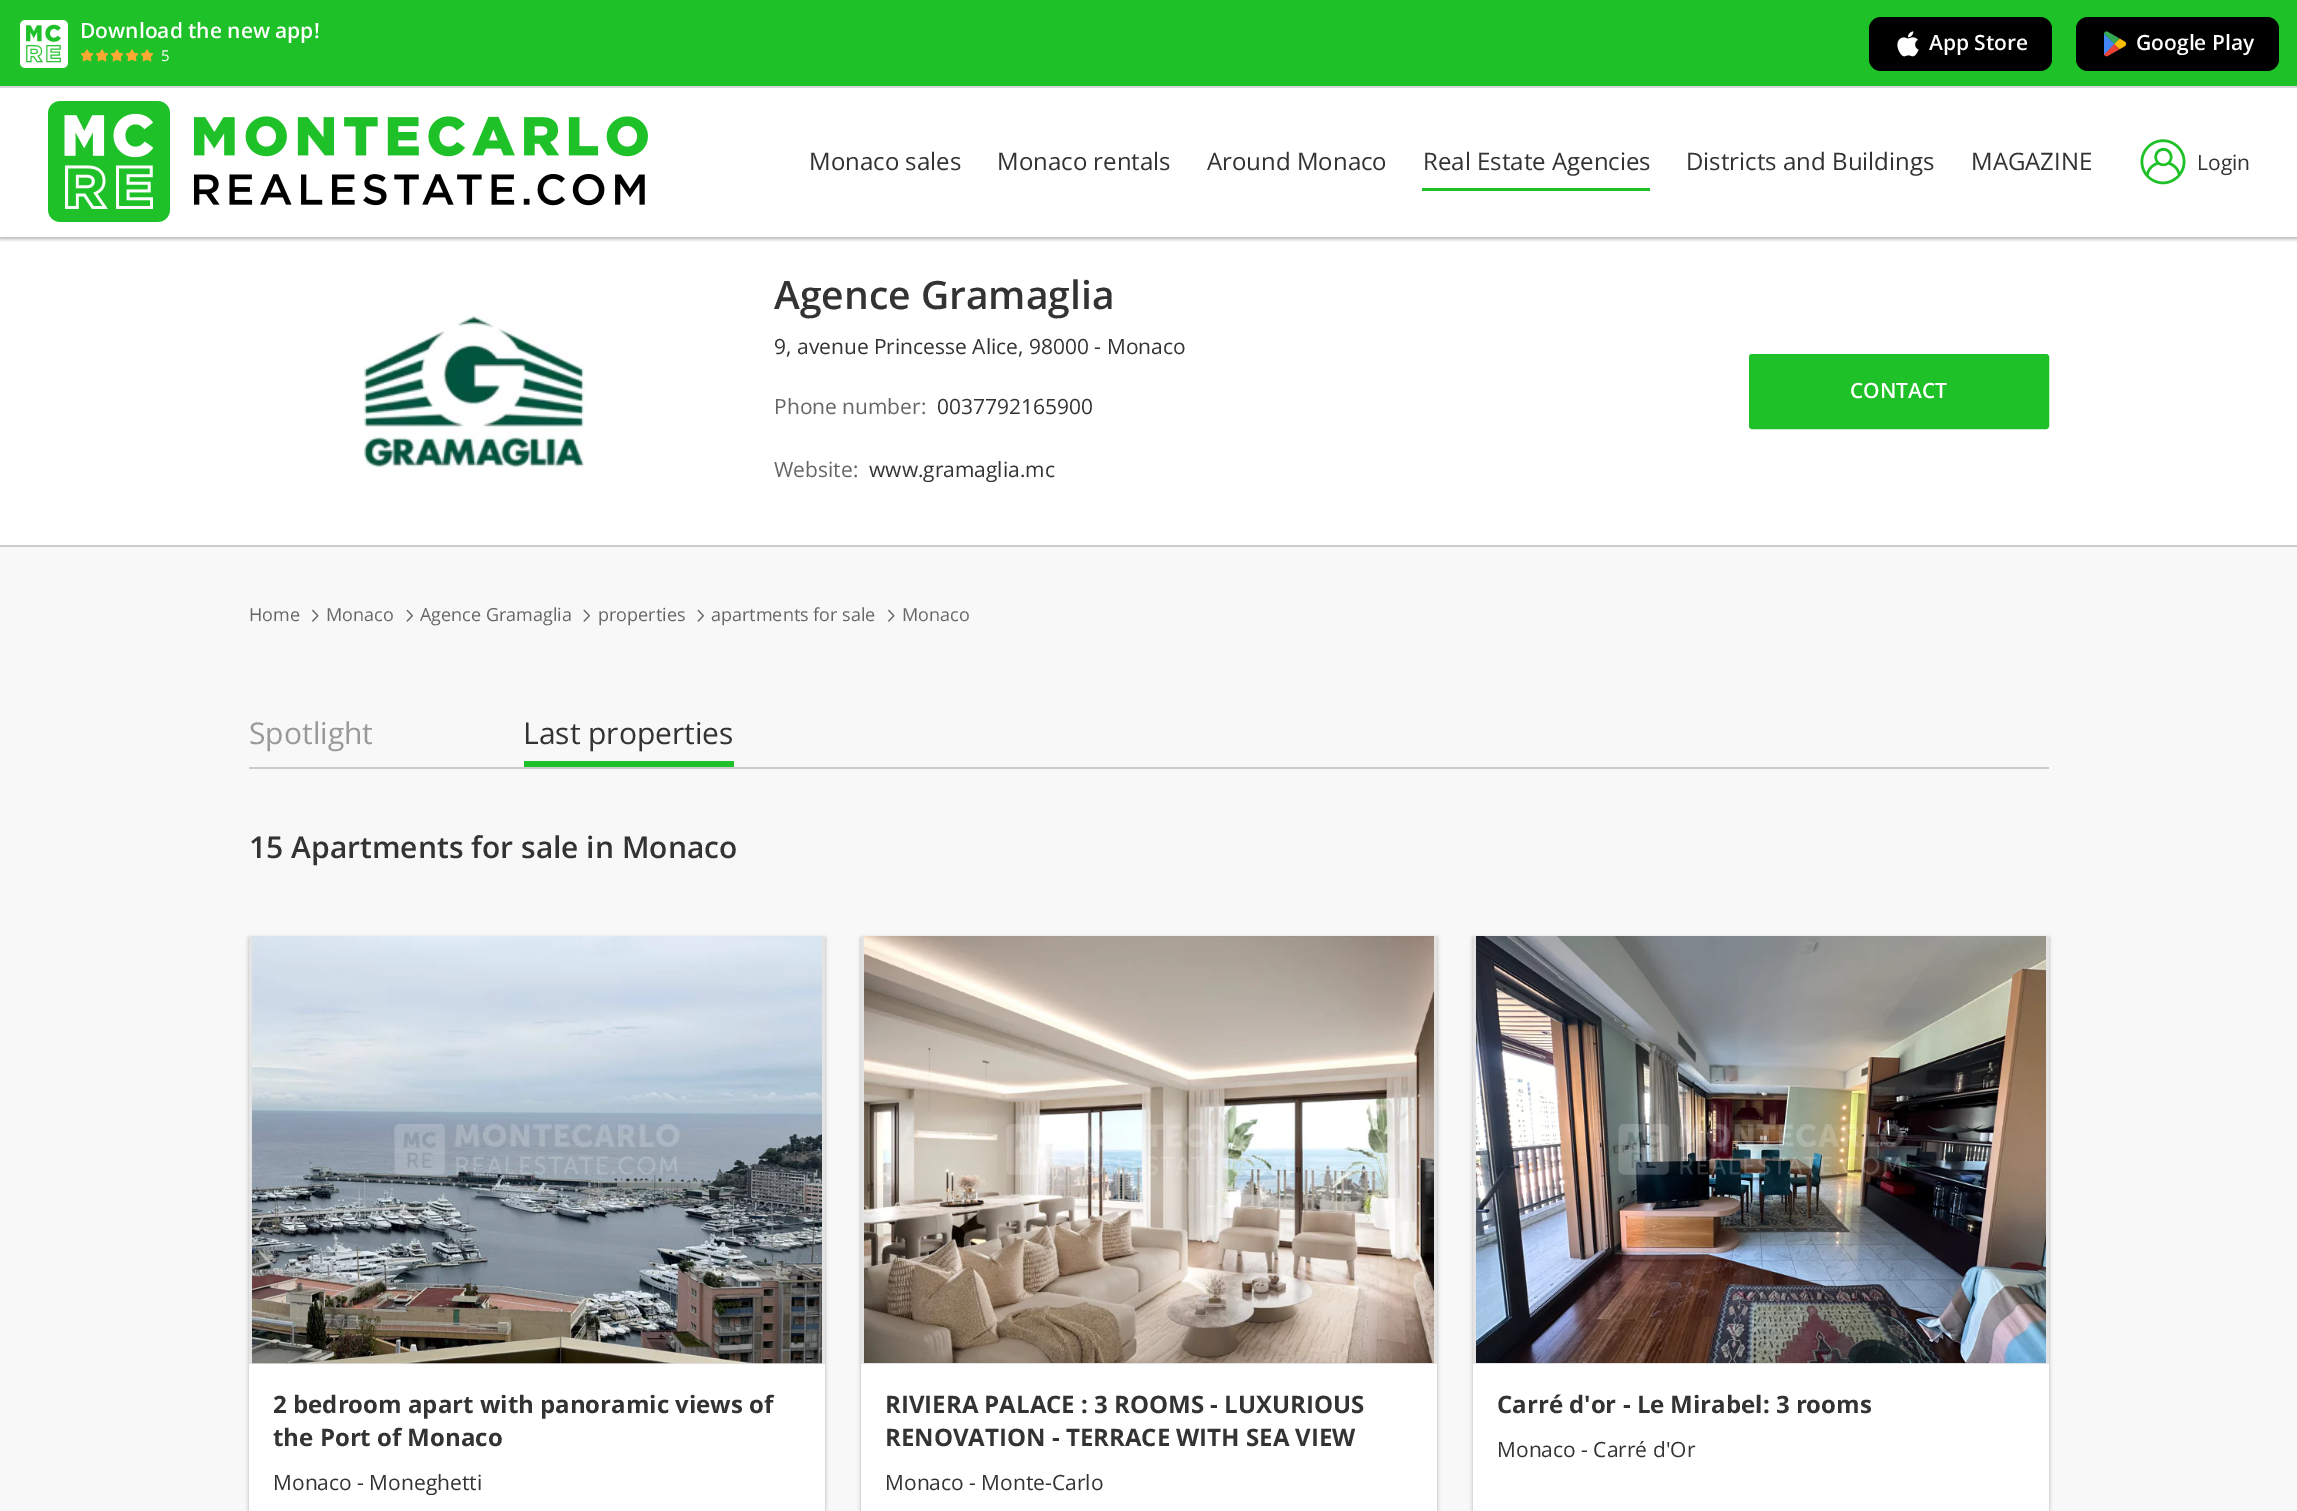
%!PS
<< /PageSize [2297 1511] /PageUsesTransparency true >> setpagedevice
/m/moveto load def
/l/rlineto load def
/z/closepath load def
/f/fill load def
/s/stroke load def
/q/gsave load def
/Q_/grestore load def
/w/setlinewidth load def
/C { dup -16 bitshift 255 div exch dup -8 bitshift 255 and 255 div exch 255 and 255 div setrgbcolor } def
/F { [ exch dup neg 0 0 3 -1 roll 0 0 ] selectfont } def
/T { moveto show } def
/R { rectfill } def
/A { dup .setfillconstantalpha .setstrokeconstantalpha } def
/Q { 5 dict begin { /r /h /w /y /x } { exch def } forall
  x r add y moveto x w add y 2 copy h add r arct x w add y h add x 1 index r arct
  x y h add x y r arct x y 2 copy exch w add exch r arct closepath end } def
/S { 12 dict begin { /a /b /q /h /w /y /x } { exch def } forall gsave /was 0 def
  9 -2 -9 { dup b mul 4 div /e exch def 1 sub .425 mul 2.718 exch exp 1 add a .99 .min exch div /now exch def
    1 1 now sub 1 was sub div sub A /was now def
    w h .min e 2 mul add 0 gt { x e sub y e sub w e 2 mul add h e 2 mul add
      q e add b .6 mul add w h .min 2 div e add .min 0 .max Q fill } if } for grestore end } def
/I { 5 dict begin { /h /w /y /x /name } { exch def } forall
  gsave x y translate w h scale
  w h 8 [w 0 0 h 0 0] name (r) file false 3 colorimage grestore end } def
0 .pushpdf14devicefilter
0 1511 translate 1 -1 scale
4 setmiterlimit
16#FFFFFF C
0 0 2297 1511 R
q
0 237 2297 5 rectclip
16#000000 C
0 89 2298 150 0 2 .3 S
Q_
16#1FC129 C
0 0 2297 86 R
16#D5D7DD C
0 86 2297 2 R
(1.rgb) 20 20 48 48 I
/OpenSans-SemiBold 21 F
16#FFFFFF C
(Download the new app!) 80 38 T
(2.rgb) 80 49 74 13 I
/OpenSans-Regular 15 F
(5) 161 61 T
16#000000 C
1869 17 183 54 12 Q f
(3.rgb) 1897 31 22 26 I
/OpenSans-SemiBold 21 F
16#FFFFFF C
(App Store) 1929 50 T
16#000000 C
2076 17 203 54 12 Q f
(6.rgb) 2103 43 17 14 I
(5.rgb) 2114 38 13 12 I
16#4285F4 C
2104 33.5 m 0 21 l 10.5 -11 l z f
(4.rgb) 2103 31 17 13 I
16#FFFFFF C
(Google Play) 2136 50 T
(7.rgb) 48 101 600 121 I
/OpenSans-Regular 24 F
16#333333 C
(Monaco sales) 809 170 T
(Monaco rentals) 997 170 T
(Around Monaco) 1207 170 T
16#1FC129 C
1422 188 228 3 R
16#333333 C
(Real Estate Agencies) 1423 170 T
(Districts and Buildings) 1686 170 T
(MAGAZINE) 1971 170 T
(8.rgb) 2140 139 46 46 I
/OpenSans-Regular 21 F
(Login) 2197 170 T
16#F8F8F8 C
0 547 2297 964 R
16#CCCCCC C
0 545 2297 2 R
(9.rgb) 362 316 223 151 I
/OpenSans-SemiBold 39 F
16#333333 C
(Agence Gramaglia) 774 309 T
/OpenSans-Regular 21 F
(9, avenue Princesse Alice, 98000 - Monaco) 774 354 T
16#666666 C
(Phone number:) 774 414 T
16#333333 C
(0037792165900) 937 414 T
16#666666 C
(Website:) 774 477 T
16#333333 C
(www.gramaglia.mc) 869 477 T
16#1FC129 C
1750 355 298 73 2 Q q f Q_
2 w
s
/OpenSans-SemiBold 21 F
16#FFFFFF C
(CONTACT) 1850 398 T
/OpenSans-Regular 18 F
16#666666 C
(Home) 249 621 T
(10.rgb) 312 609 7 13 I
(Monaco) 326 621 T
(11.rgb) 406 609 7 13 I
(Agence Gramaglia) 420 621 T
(11.rgb) 583 609 7 13 I
(properties) 598 621 T
(11.rgb) 697 609 7 13 I
(apartments for sale) 711 621 T
(10.rgb) 888 609 7 13 I
(Monaco) 902 621 T
16#CCCCCC C
249 767 1800 2 R
/OpenSans-Regular 30 F
16#999999 C
(Spotlight) 249 744 T
16#1FC129 C
524 761 210 6 R
16#333333 C
(Last properties) 523 744 T
/OpenSans-SemiBold 30 F
(15 Apartments for sale in Monaco) 249 858 T
16#000000 C
249 938 576 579 0 2 .3 S
16#E3E3E3 C
249 936 576 428 R
(12.rgb) 252 936 570 428 I
16#FFFFFF C
249 1364 576 147 R
/OpenSans-Bold 24 F
16#333333 C
(2 bedroom apart with panoramic views of) 273 1413 T
(the Port of Monaco) 273 1446 T
/OpenSans-Regular 21 F
(Monaco - Moneghetti) 273 1490 T
16#000000 C
861 938 576 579 0 2 .3 S
16#E3E3E3 C
861 936 576 428 R
(13.rgb) 864 936 570 427 I
16#FFFFFF C
861 1364 576 147 R
/OpenSans-Bold 24 F
16#333333 C
(RIVIERA PALACE : 3 ROOMS - LUXURIOUS) 885 1413 T
(RENOVATION - TERRACE WITH SEA VIEW) 885 1446 T
/OpenSans-Regular 21 F
(Monaco - Monte-Carlo) 885 1490 T
16#000000 C
1473 938 576 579 0 2 .3 S
16#E3E3E3 C
1473 936 576 428 R
(14.rgb) 1476 936 570 427 I
16#FFFFFF C
1473 1364 576 147 R
/OpenSans-Bold 24 F
16#333333 C
(Carré d'or - Le Mirabel: 3 rooms) 1497 1413 T
/OpenSans-Regular 21 F
(Monaco - Carré d'Or) 1497 1457 T
.poppdf14devicefilter showpage
